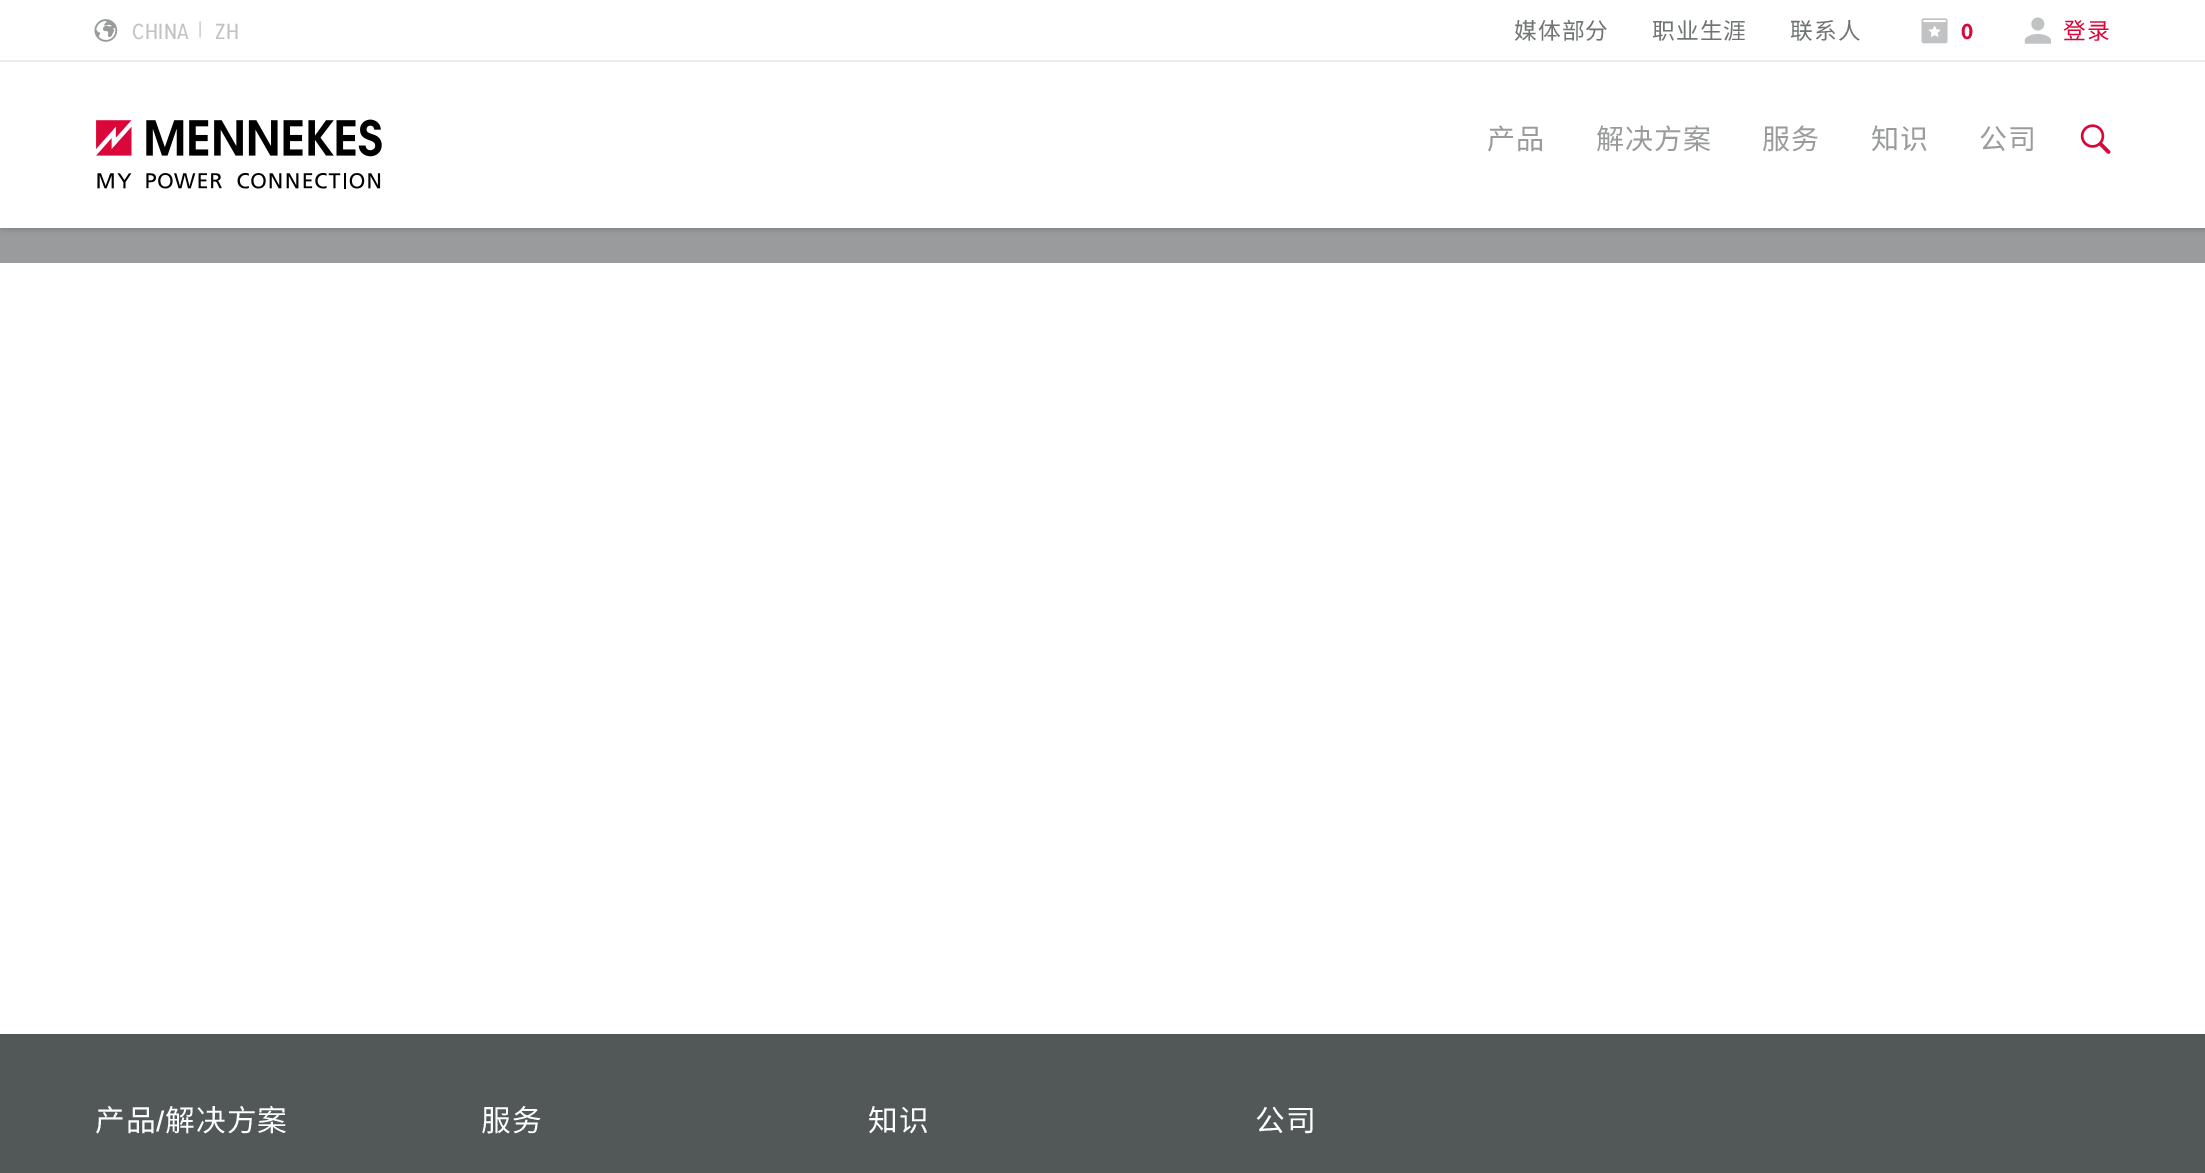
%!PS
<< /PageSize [2205 1173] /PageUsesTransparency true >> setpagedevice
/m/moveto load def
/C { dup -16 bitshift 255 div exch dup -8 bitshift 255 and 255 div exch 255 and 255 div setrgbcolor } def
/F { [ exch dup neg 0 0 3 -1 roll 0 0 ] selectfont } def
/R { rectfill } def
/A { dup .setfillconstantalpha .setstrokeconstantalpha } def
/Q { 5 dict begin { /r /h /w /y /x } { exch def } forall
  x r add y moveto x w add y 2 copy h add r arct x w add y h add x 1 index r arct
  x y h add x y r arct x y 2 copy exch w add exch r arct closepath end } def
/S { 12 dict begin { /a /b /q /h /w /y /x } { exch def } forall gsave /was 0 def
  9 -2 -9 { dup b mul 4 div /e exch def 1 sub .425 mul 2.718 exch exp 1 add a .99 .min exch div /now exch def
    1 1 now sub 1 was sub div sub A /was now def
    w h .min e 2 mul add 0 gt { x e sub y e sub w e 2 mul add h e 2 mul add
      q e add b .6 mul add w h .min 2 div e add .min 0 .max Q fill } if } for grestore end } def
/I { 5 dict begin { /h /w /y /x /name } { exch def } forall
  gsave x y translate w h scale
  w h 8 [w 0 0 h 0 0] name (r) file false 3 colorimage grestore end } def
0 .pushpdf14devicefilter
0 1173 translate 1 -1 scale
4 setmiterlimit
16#FFFFFF C
0 0 2205 1173 R
16#999B9C C
0 228 2205 35 R
16#000000 C
2 63 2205 166 0 3.5 .2 S
16#FFFFFF C
0 57 2205 3 R
16#EBEEEE C
0 60 2205 2 R
(1.rgb) 94 19 24 23 I
/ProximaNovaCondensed-Regular 22.75 F
16#C1C2C3 C
132 39 m .5 0 (CHINA) ashow
198 37 m .5 0 (|) ashow
215 39 m .5 0 (ZH) ashow
/NotoSansCJKSC-Regular 22.75 F
16#707475 C
1514 39 m 1 0 (媒体部分) ashow
1652 39 m 1 0 (职业生涯) ashow
1790 39 m 1 0 (联系人) ashow
(2.rgb) 1921 18 27 26 I
/ProximaNovaCondensed-Bold 22.75 F
16#D9073A C
1961 39 m 1 0 (0) ashow
(3.rgb) 2024 17 27 27 I
/NotoSansCJKSC-Regular 22.75 F
2063 39 m 1 0 (登录) ashow
16#FFFFFF C
0 62 2205 166 R
(4.rgb) 96 119 286 70 I
/NotoSansCJKSC-Regular 28 F
16#999B9C C
1487 149 m 1 0 (产品) ashow
1596 149 m 1 0 (解决方案) ashow
1762 149 m 1 0 (服务) ashow
1871 149 m 1 0 (知识) ashow
1979 149 m 1 0 (公司) ashow
(5.rgb) 2080 124 31 30 I
16#525758 C
0 1034 2205 139 R
/NotoSansCJKSC-Regular 29.75 F
16#FFFFFF C
95 1131 m 1 0 (产品) ashow
/ProximaNovaCondensed-Bold 29.75 F
156 1131 m 1 0 (/) ashow
/NotoSansCJKSC-Regular 29.75 F
165 1131 m 1 0 (解决方案) ashow
481 1131 m 1 0 (服务) ashow
868 1131 m 1 0 (知识) ashow
1255 1131 m 1 0 (公司) ashow
.poppdf14devicefilter showpage
